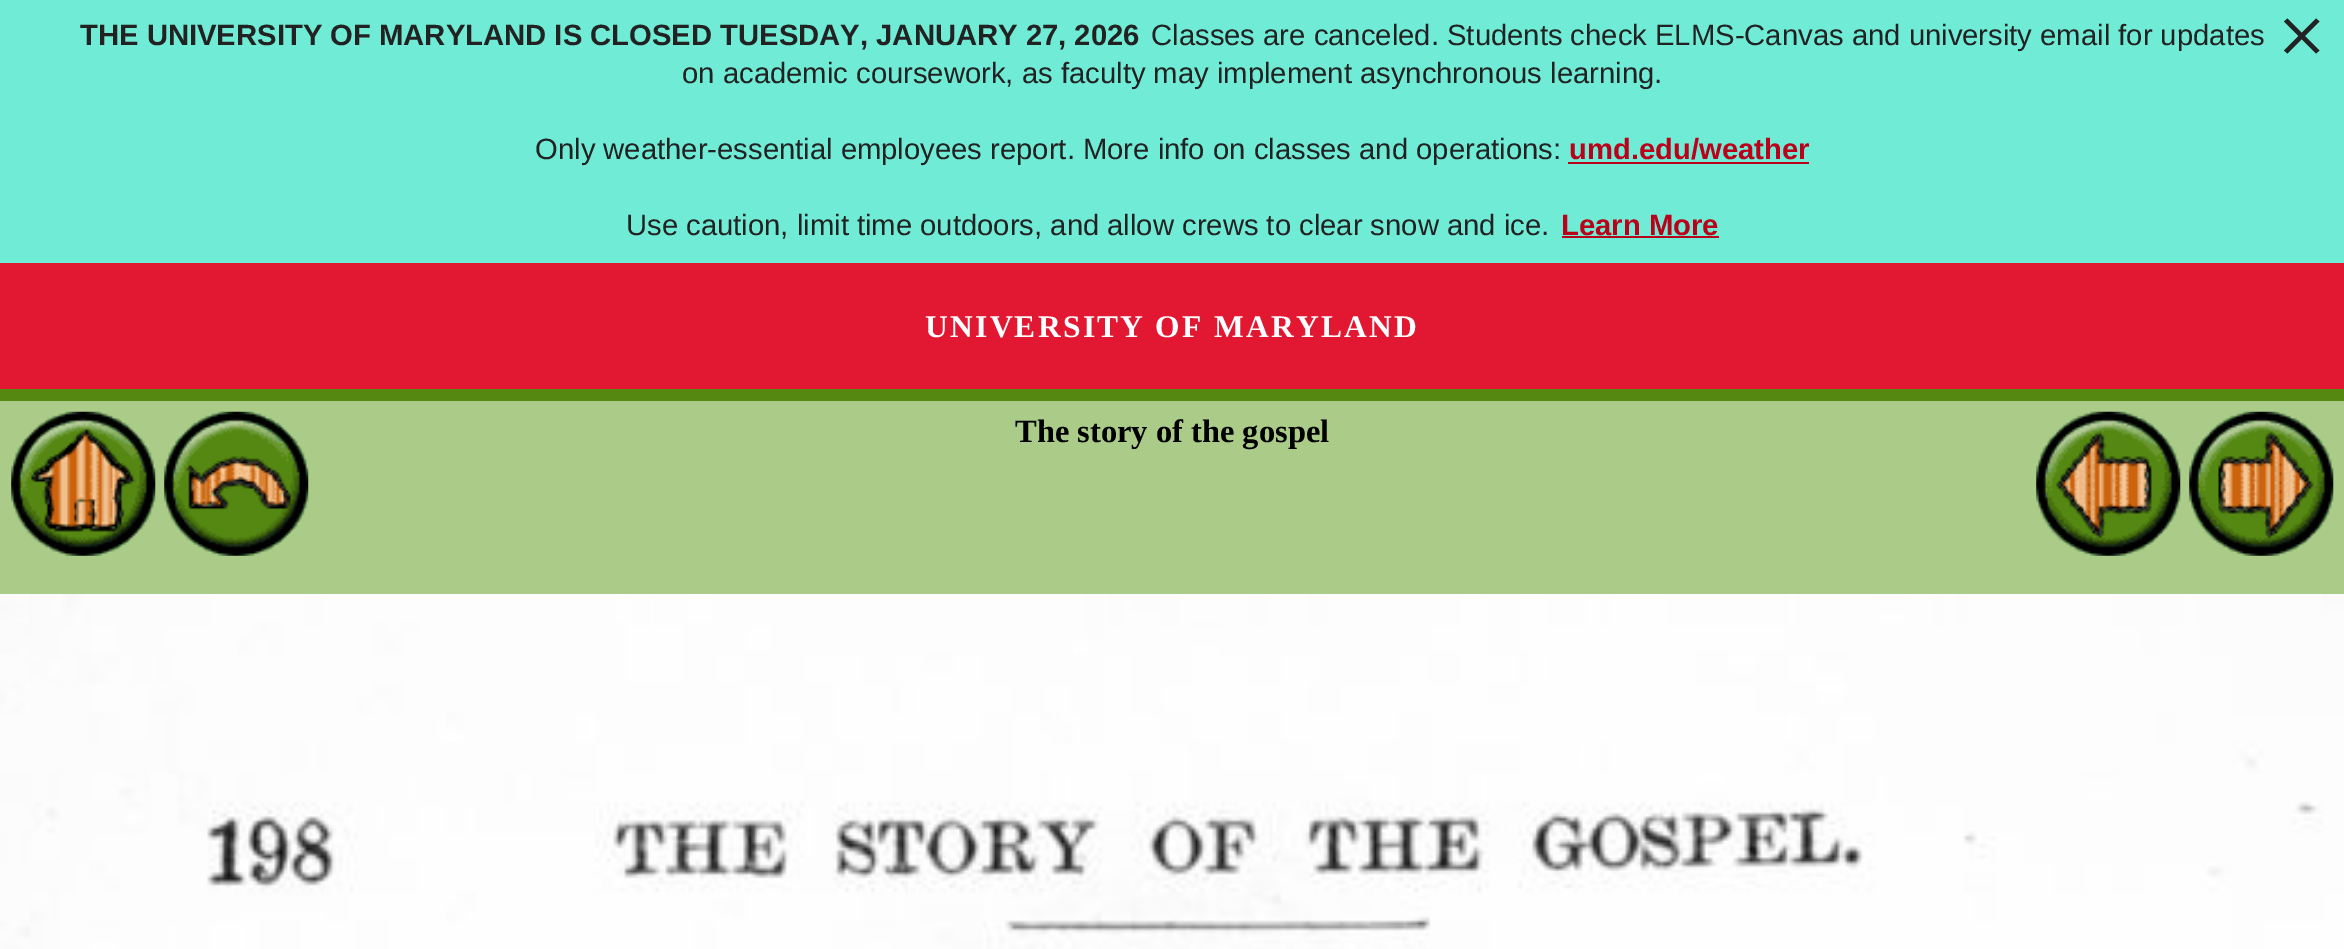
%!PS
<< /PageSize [2344 949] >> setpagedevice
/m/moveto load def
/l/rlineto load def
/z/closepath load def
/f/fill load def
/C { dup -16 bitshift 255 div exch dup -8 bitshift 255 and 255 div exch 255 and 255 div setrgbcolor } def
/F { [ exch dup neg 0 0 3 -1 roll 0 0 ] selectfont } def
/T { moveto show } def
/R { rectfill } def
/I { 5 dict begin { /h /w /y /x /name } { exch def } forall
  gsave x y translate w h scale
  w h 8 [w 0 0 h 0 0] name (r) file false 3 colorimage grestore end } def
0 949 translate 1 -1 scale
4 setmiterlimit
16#AACC88 C
0 0 2344 949 R
16#70EBD6 C
0 0 2344 263 R
/LiberationSans-Bold 29.25 F
16#222222 C
(THE UNIVERSITY OF MARYLAND IS CLOSED TUESDAY, JANUARY 27, 2026) 80 45 T
/LiberationSans-Regular 29.25 F
(Classes are canceled. Students check ELMS-Canvas and university email for updates) 1151 45 T
2319.5 50.5 m -3.5 3 l -32 -32 l 3.5 -3 l z f
2316 18.5 m 3.5 3 l -32 32 l -3.5 -3 l z f
(on academic coursework, as faculty may implement asynchronous learning.) 682 83 T
(Only weather-essential employees report. More info on classes and operations:) 535 159 T
/LiberationSans-Bold 29.25 F
16#BB0019 C
(umd.edu/weather) 1569 159 T
1568 162 241 2 R
/LiberationSans-Regular 29.25 F
16#222222 C
(Use caution, limit time outdoors, and allow crews to clear snow and ice.) 626 235 T
/LiberationSans-Bold 29.25 F
16#BB0019 C
(Learn More) 1561 235 T
1562 236 157 2 R
16#E21833 C
0 263 2344 126 R
/LiberationSerif-Bold 31.5 F
16#FFFFFF C
925 337 m 2.25 0 (UNIVERSITY OF MARYLAND) ashow
16#558811 C
0 389 2344 12 R
(1.rgb) 11 411 145 145 I
(2.rgb) 164 411 145 145 I
/LiberationSerif-Bold 32.5 F
16#000000 C
(The story of the gospel) 1015 442 T
(3.rgb) 2036 411 145 145 I
(4.rgb) 2189 411 145 145 I
(5.rgb) 0 594 2344 355 I
showpage
